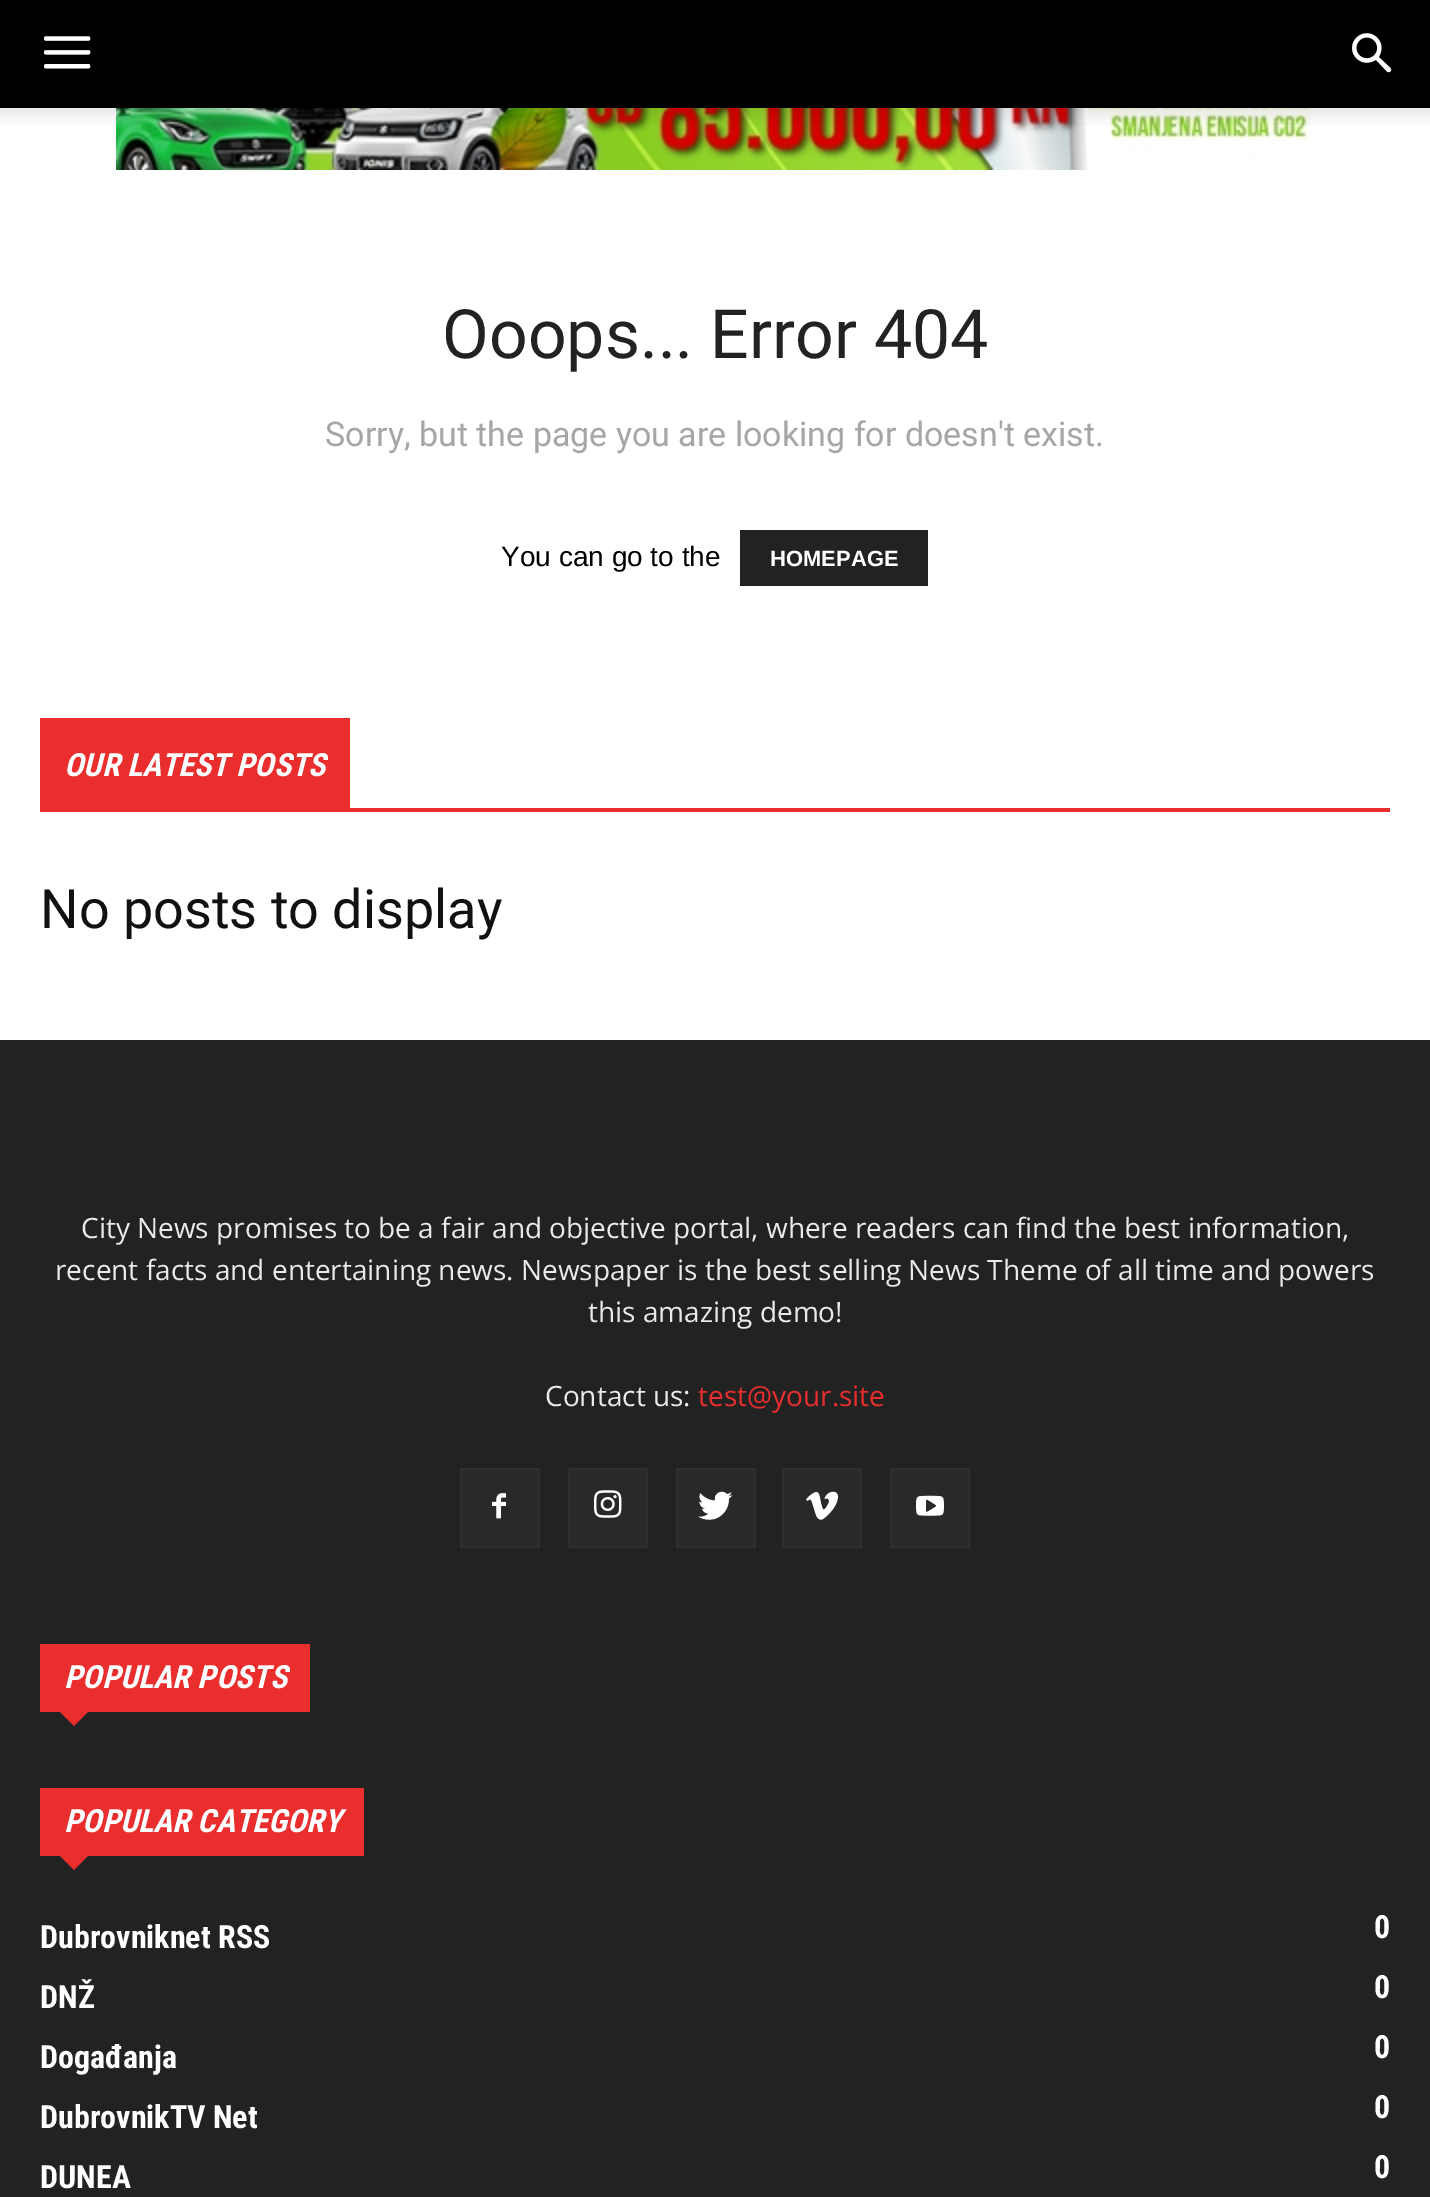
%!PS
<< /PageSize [1430 2197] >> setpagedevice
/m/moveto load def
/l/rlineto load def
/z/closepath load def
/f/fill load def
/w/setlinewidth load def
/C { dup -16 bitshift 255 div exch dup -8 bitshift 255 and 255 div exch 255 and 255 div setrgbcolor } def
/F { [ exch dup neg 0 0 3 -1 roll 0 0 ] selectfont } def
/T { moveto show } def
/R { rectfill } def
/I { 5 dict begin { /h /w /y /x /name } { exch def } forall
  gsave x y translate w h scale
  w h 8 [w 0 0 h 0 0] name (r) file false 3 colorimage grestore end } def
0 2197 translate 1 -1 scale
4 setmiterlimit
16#FFFFFF C
0 0 1430 2197 R
16#000000 C
0 0 1430 108 R
(1.rgb) 44 36 47 33 I
(2.rgb) 1352 33 40 40 I
(4.rgb) 116 108 1195 62 I
(3.rgb) 0 108 1430 17 I
/Roboto-Regular 68 F
16#222222 C
(Ooops... Error 404) 442 358 T
/Roboto-Regular 34 F
16#A6A6A6 C
(Sorry, but the page you are looking for doesn't exist.) 325 446 T
/LiberationSans-Regular 28 F
16#000000 C
(You can go to the) 501 566 T
16#222222 C
740 530 188 56 R
/LiberationSans-Bold 22 F
16#FFFFFF C
(HOMEPAGE) 770 566 T
16#EA2E2E C
40 808 1350 4 R
40 718 310 90 R
/RobotoCondensed-BoldItalic 32 F
16#FFFFFF C
(OUR LATEST POSTS) 64 776 T
/Roboto-Regular 54 F
16#111111 C
(No posts to display) 40 928 T
16#222222 C
0 1040 1430 1157 R
/OpenSans-Regular 28 F
16#EAEAEA C
(City News promises to be a fair and objective portal, where readers can find the best information,) 81 1238 T
(recent facts and entertaining news. Newspaper is the best selling News Theme of all time and powers) 55 1280 T
(this amazing demo!) 588 1322 T
(Contact us:) 545 1406 T
16#EA2E2E C
(test@your.site) 698 1406 T
16#292929 C
462 1470 76 76 R
(5.rgb) 492 1493 14 26 I
16#2F2F2F C
2 w
461 1469 78 78 rectstroke
16#292929 C
570 1470 76 76 R
(6.rgb) 594 1490 28 28 I
16#2F2F2F C
569 1469 78 78 rectstroke
16#292929 C
678 1470 76 76 R
(7.rgb) 698 1491 35 29 I
16#2F2F2F C
677 1469 78 78 rectstroke
16#292929 C
784 1470 76 76 R
(8.rgb) 806 1491 33 29 I
16#2F2F2F C
783 1469 78 78 rectstroke
16#292929 C
892 1470 76 76 R
(9.rgb) 916 1495 28 21 I
16#2F2F2F C
891 1469 78 78 rectstroke
16#EA2E2E C
40 1644 270 68 R
/RobotoCondensed-BoldItalic 32 F
16#FFFFFF C
(POPULAR POSTS) 64 1688 T
16#EA2E2E C
60 1712 m 28 0 l -14 14 l z f
40 1788 324 68 R
16#FFFFFF C
(POPULAR CATEGORY) 64 1832 T
16#EA2E2E C
60 1856 m 28 0 l -14 14 l z f
/RobotoCondensed-Bold 32 F
16#FFFFFF C
(Dubrovniknet RSS) 40 1948 T
(0) 1374 1938 T
(DNŽ) 40 2008 T
(0) 1374 1998 T
(Događanja) 40 2068 T
(0) 1374 2058 T
(DubrovnikTV Net) 40 2128 T
(0) 1374 2118 T
(DUNEA) 40 2188 T
(0) 1374 2178 T
showpage
